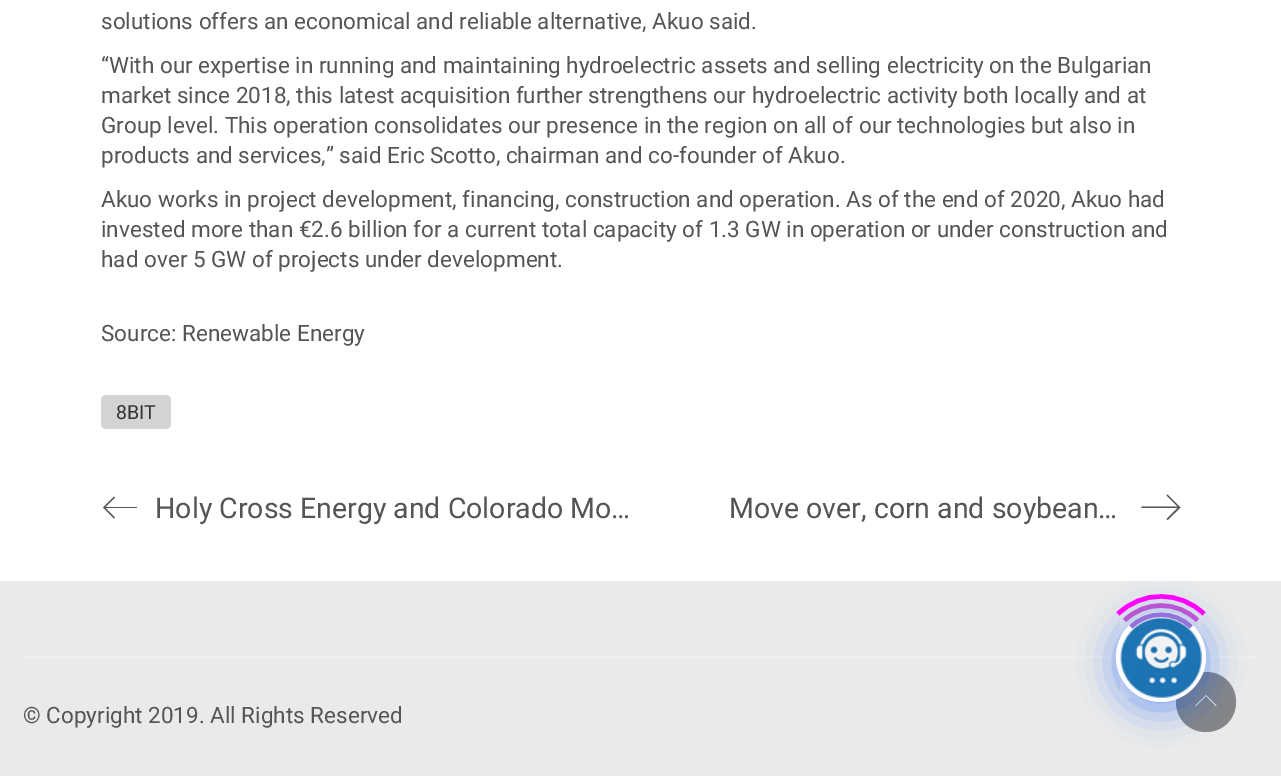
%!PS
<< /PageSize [1281 776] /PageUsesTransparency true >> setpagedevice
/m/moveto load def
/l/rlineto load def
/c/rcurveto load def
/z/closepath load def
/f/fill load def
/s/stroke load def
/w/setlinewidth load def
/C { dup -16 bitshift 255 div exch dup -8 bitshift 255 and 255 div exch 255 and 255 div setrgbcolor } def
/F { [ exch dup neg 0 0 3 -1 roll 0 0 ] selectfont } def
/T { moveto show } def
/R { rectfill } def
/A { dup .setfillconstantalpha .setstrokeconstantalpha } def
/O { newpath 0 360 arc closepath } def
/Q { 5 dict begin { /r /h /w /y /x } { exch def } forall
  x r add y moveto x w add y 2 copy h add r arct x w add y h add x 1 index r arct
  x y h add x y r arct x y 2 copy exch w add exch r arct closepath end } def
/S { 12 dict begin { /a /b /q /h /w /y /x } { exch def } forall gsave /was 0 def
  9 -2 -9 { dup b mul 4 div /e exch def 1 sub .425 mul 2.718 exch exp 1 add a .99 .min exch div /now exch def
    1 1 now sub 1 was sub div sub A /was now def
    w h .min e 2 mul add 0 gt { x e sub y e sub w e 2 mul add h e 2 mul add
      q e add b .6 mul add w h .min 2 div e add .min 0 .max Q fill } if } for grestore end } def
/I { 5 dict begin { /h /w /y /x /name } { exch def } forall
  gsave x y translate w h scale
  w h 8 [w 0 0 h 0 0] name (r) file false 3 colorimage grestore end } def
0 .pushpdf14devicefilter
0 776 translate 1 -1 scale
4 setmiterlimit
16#FFFFFF C
0 0 1281 776 R
/Roboto-Regular 22.5 F
16#555555 C
(solutions offers an economical and reliable alternative, Akuo said.) 101 29 T
(“With our expertise in running and maintaining hydroelectric assets and selling electricity on the Bulgarian) 101 73 T
(market since 2018, this latest acquisition further strengthens our hydroelectric activity both locally and at) 101 103 T
(Group level. This operation consolidates our presence in the region on all of our technologies but also in) 101 133 T
(products and services,” said Eric Scotto, chairman and co-founder of Akuo.) 101 163 T
(Akuo works in project development, financing, construction and operation. As of the end of 2020, Akuo had) 101 207 T
(invested more than €2.6 billion for a current total capacity of 1.3 GW in operation or under construction and) 101 237 T
(had over 5 GW of projects under development.) 101 267 T
(Source: Renewable Energy) 101 341 T
16#D3D3D3 C
101 395 70 34 5 Q f
/Roboto-Regular 19.5 F
16#333333 C
(8BIT) 116 419 T
16#555555 C
137 507 m -31.5 0 l 9.5 -9.5 l -1 -1 l -11 11 l 11 11 l 1 -1 l -9.5 -9.5 l 31.5 0 l z f
/Roboto-Regular 28.5 F
(Holy Cross Energy and Colorado Mo…) 155 518 T
(Move over, corn and soybean…) 729 518 T
1167.5 494.5 m -1 1 l 11 11 l -36 0 l 0 1.5 l 36 0 l -11 11 l 1 1 l 13 -12.5 l z f
16#EAEAEA C
0 581 1281 195 R
16#EEEEEE C
23 656 1236 2 R
16#868686 C
1206 732 m -17 0 -30 -13 -30 -30 c 0 -17 13 -30 30 -30 c 17 0 30 13 30 30 c 0 17 -13 30 -30 30 c z f
16#F5F5F5 C
1206 695 m 10.5 10.5 l -.5 .5 l -10 -10 l -10 10 l -.5 -.5 l z f
16#004DFF C
1116 618 90 90 45 18 .5 S
16#FFFFFF C
1161 657 45 O f
(1.rgb) 1120 617 82 81 I
0.99 A
16#9370DB C
4.5 w
1131 627 m 16 -16.5 44 -16.5 60 0 c s
16#BA55D3 C
1124.5 620.5 m 20 -20 53 -20 73 0 c s
16#FF00FF C
1118 614 m 23.5 -23.5 62.5 -23.5 86 0 c s
/Roboto-Regular 22.5 F
1 A
16#555555 C
(© Copyright 2019. All Rights Reserved) 23 723 T
.poppdf14devicefilter showpage
